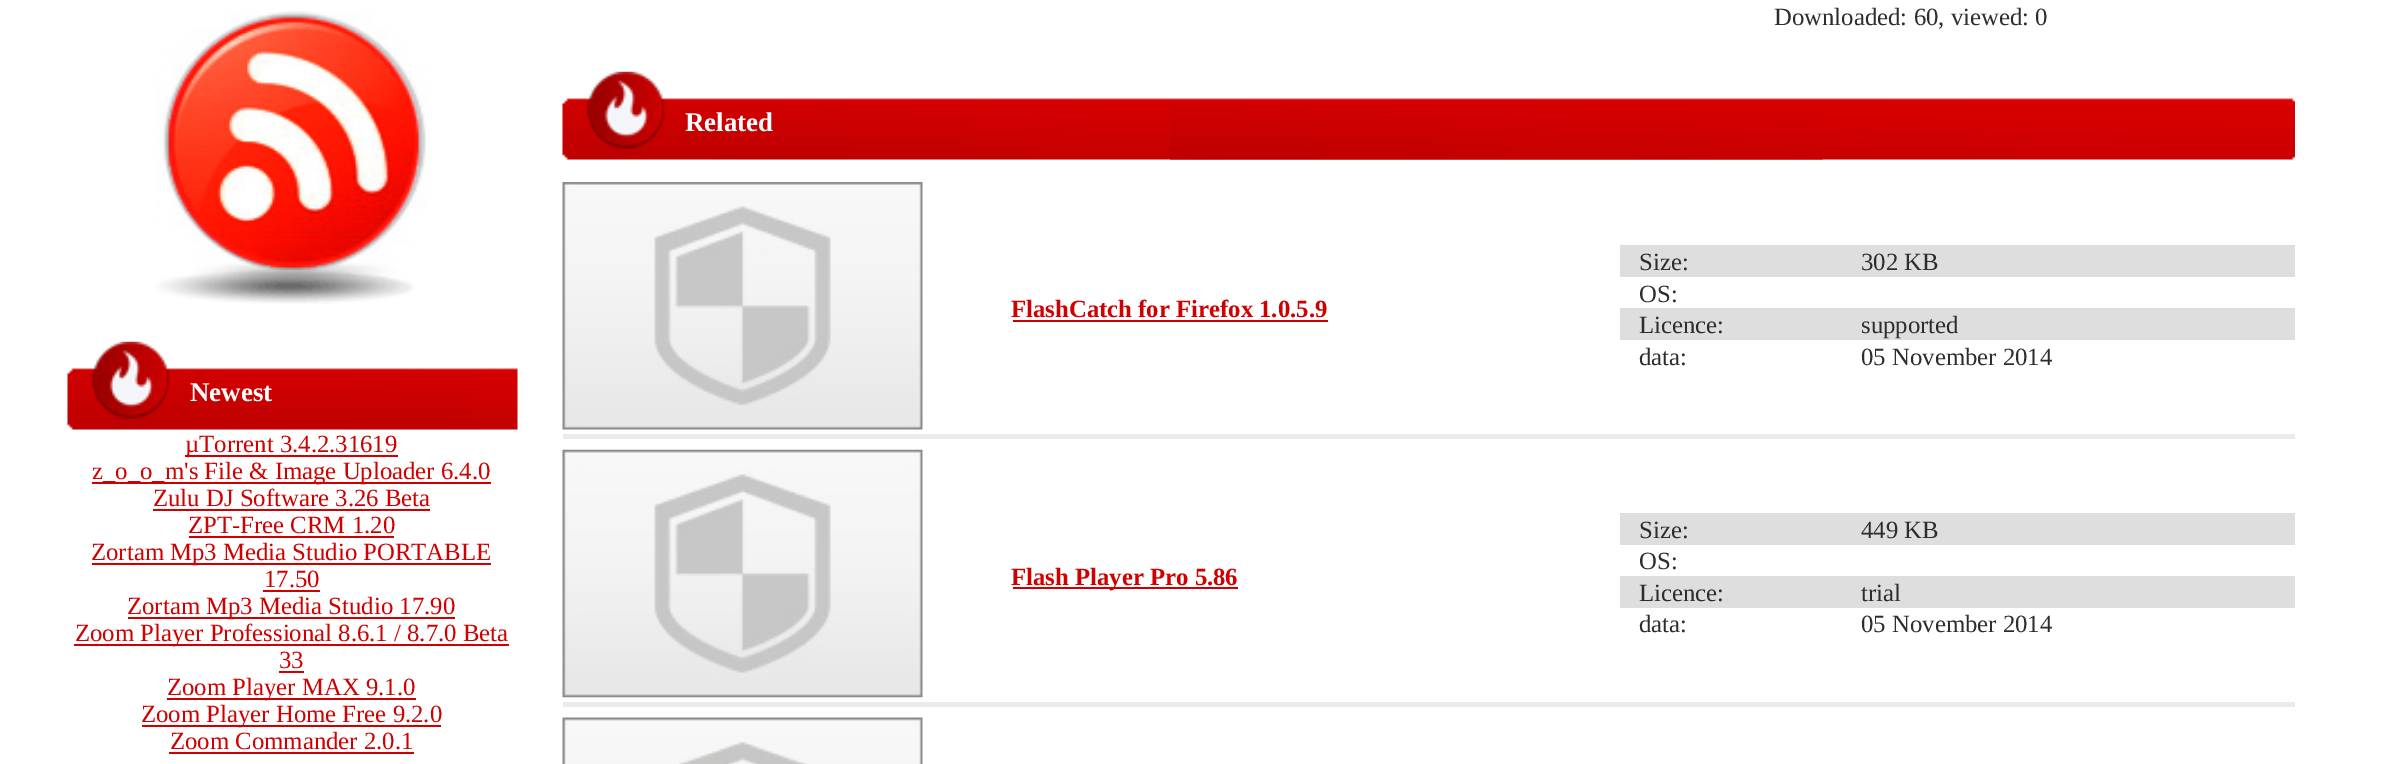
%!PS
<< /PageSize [2390 764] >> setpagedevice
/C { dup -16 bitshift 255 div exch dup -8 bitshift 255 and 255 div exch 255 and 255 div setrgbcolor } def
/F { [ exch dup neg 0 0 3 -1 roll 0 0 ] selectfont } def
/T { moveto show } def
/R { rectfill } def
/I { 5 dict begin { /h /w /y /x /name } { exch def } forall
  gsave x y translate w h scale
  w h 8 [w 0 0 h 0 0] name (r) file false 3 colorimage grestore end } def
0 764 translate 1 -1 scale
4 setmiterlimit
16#FFFFFF C
0 0 2390 764 R
(1.rgb) 156 11 270 293 I
(2.rgb) 67 341 451 89 I
/LiberationSerif-Bold 27 F
(Newest) 190 401 T
16#D00000 C
185 455 213 2 R
/LiberationSerif-Regular 24.75 F
(µTorrent 3.4.2.31619) 185 452 T
92 482 399 2 R
(z_o_o_m's File & Image Uploader 6.4.0) 92 479 T
(Zulu DJ Software 3.26 Beta) 153 506 T
153 509 277 2 R
(ZPT-Free CRM 1.20) 188 533 T
189 536 205 2 R
92 563 399 2 R
(Zortam Mp3 Media Studio PORTABLE) 91 560 T
(17.50) 264 587 T
263 590 57 2 R
128 617 327 2 R
(Zortam Mp3 Media Studio 17.90) 127 614 T
74 644 435 2 R
(Zoom Player Professional 8.6.1 / 8.7.0 Beta) 75 641 T
(33) 279 668 T
279 671 25 2 R
167 698 249 2 R
(Zoom Player MAX 9.1.0) 167 695 T
142 725 299 2 R
(Zoom Player Home Free 9.2.0) 141 722 T
(Zoom Commander 2.0.1) 170 749 T
169 752 245 2 R
16#2D2D2D C
(Downloaded: 60, viewed: 0) 1774 25 T
(3.rgb) 562 71 1263 89 I
/LiberationSerif-Bold 27 F
16#FFFFFF C
(Related) 685 131 T
(4.rgb) 1170 98 1125 62 I
(5.rgb) 562 182 361 248 I
/LiberationSerif-Bold 24.75 F
16#D00000 C
(FlashCatch for Firefox 1.0.5.9) 1011 317 T
1013 320 315 2 R
16#DEDEDE C
1620 245 675 32 R
/LiberationSerif-Regular 24.75 F
16#2D2D2D C
(Size:) 1639 270 T
(302 KB) 1861 270 T
(OS:) 1639 302 T
16#DEDEDE C
1620 308 675 32 R
16#2D2D2D C
(Licence:) 1639 333 T
(supported) 1861 333 T
(data:) 1639 365 T
(05 November 2014) 1861 365 T
16#EBEBEB C
563 434 1732 5 R
(6.rgb) 562 449 361 249 I
16#D00000 C
1013 587 225 2 R
/LiberationSerif-Bold 24.75 F
(Flash Player Pro 5.86) 1011 585 T
16#DEDEDE C
1620 513 675 32 R
/LiberationSerif-Regular 24.75 F
16#2D2D2D C
(Size:) 1639 538 T
(449 KB) 1861 538 T
(OS:) 1639 569 T
16#DEDEDE C
1620 576 675 32 R
16#2D2D2D C
(Licence:) 1639 601 T
(trial) 1861 601 T
(data:) 1639 632 T
(05 November 2014) 1861 632 T
16#EBEBEB C
563 702 1732 5 R
(7.rgb) 562 717 361 47 I
showpage
